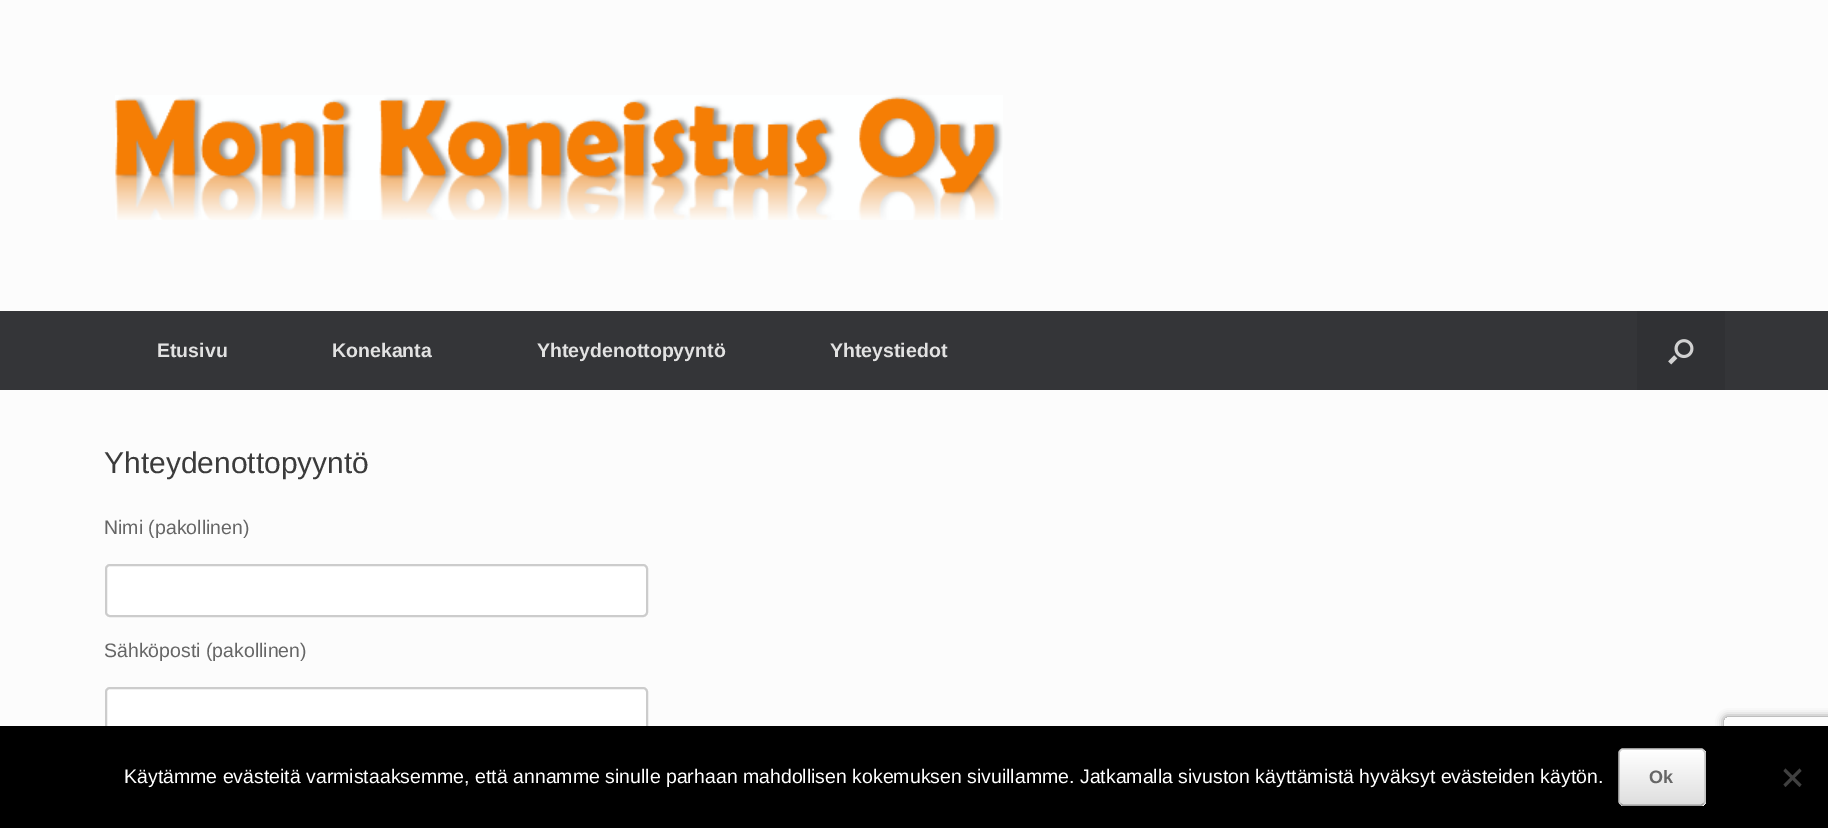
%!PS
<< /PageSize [1828 828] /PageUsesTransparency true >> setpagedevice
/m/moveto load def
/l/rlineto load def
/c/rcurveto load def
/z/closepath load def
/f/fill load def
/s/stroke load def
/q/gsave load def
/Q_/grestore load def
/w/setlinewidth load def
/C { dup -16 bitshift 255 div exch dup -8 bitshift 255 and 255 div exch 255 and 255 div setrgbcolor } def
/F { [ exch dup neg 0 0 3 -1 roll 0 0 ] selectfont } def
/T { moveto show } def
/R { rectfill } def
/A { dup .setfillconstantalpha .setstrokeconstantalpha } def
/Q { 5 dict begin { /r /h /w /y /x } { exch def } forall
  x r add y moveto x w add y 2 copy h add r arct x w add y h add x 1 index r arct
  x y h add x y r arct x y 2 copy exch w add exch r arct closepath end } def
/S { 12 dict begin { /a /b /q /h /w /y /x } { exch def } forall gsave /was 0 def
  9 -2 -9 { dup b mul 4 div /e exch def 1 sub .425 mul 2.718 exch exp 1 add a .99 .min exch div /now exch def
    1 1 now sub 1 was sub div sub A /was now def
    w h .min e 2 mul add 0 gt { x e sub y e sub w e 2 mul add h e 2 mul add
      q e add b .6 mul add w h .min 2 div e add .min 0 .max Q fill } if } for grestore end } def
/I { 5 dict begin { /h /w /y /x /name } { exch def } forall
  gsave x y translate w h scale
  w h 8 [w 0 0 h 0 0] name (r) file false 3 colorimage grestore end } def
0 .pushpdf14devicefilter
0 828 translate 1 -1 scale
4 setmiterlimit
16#FCFCFC C
0 0 1828 828 R
(1.rgb) 115 95 888 125 I
16#343538 C
0 311 1828 79 R
/LiberationSans-Bold 19.5 F
16#E2E2E2 C
(Etusivu) 157 357 T
(Konekanta) 332 357 T
(Yhteydenottopyyntö) 537 357 T
(Yhteystiedot) 830 357 T
16#303134 C
1637 311 88 79 R
(2.rgb) 1668 339 26 26 I
/LiberationSans-Regular 30 F
16#3B3B3B C
(Yhteydenottopyyntö) 104 473 T
/LiberationSans-Regular 19.5 F
16#666666 C
(Nimi \(pakollinen\)) 104 534 T
16#FFFFFF C
106 565 541 51 4 Q q f Q_
16#CCCCCC C
2 w
s
16#666666 C
(Sähköposti \(pakollinen\)) 104 657 T
16#FFFFFF C
106 688 541 51 4 Q q f Q_
16#CCCCCC C
s
q
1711 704 m 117 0 l 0 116 l -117 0 l z 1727 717 m 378 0 l 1.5 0 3 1.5 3 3 c 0 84 l 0 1.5 -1.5 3 -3 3 c -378 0 l -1.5 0 -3 -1.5 -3 -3 c 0 -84 l 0 -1.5 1.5 -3 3 -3 c z eoclip newpath
16#808080 C
1724 717 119 90 3 4 1 S
Q_
16#000000 C
0 726 1828 102 R
16#FFFFFF C
(Käytämme evästeitä varmistaaksemme, että annamme sinulle parhaan mahdollisen kokemuksen sivuillamme. Jatkamalla sivuston käyttämistä hyväksyt evästeiden käytön.) 124 783 T
q
1619 749 87 57 5 Q clip newpath
q 1619 750 m 87 0 l 0 54 l -87 0 l z clip newpath
<< /ShadingType 2 /ColorSpace /DeviceRGB /Coords [1620 804 1620 750] /Extend [true true] /Function << /FunctionType 2 /Domain [0 1] /C0 [.875 .875 .875] /C1 [1 1 1] /N 1 >> >> shfill Q_
q 1619 804 m 87 0 l 0 2 l -87 0 l z clip newpath
<< /ShadingType 2 /ColorSpace /DeviceRGB /Coords [1620 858 1620 804] /Extend [true true] /Function << /FunctionType 2 /Domain [0 1] /C0 [.875 .875 .875] /C1 [1 1 1] /N 1 >> >> shfill Q_
Q_
16#D2D2D2 C
1.5 w
1620.5 750.5 m .5 -1 1.5 -1.5 2.5 -1.5 c 78 0 l 1 0 2 .5 2.5 1.5 c s
16#C3C3C3 C
1703.5 750.5 m 1 .5 1.5 1.5 1.5 2.5 c 0 48 l 0 1 -.5 2 -1.5 2.5 c s
16#9F9F9F C
1703.5 803.5 m -.5 1 -1.5 1.5 -2.5 1.5 c -78 0 l -1 0 -2 -.5 -2.5 -1.5 c s
16#C3C3C3 C
1620.5 803.5 m -1 -.5 -1.5 -1.5 -1.5 -2.5 c 0 -48 l 0 -1 .5 -2 1.5 -2.5 c s
/LiberationSans-Bold 18 F
16#666666 C
(Ok) 1649 783 T
16#404040 C
1799.5 768.5 m 2 2.5 l -16 16 l -2 -2.5 l z f
1783.5 771 m 2 -2.5 l 16 16 l -2 2.5 l z f
.poppdf14devicefilter showpage
